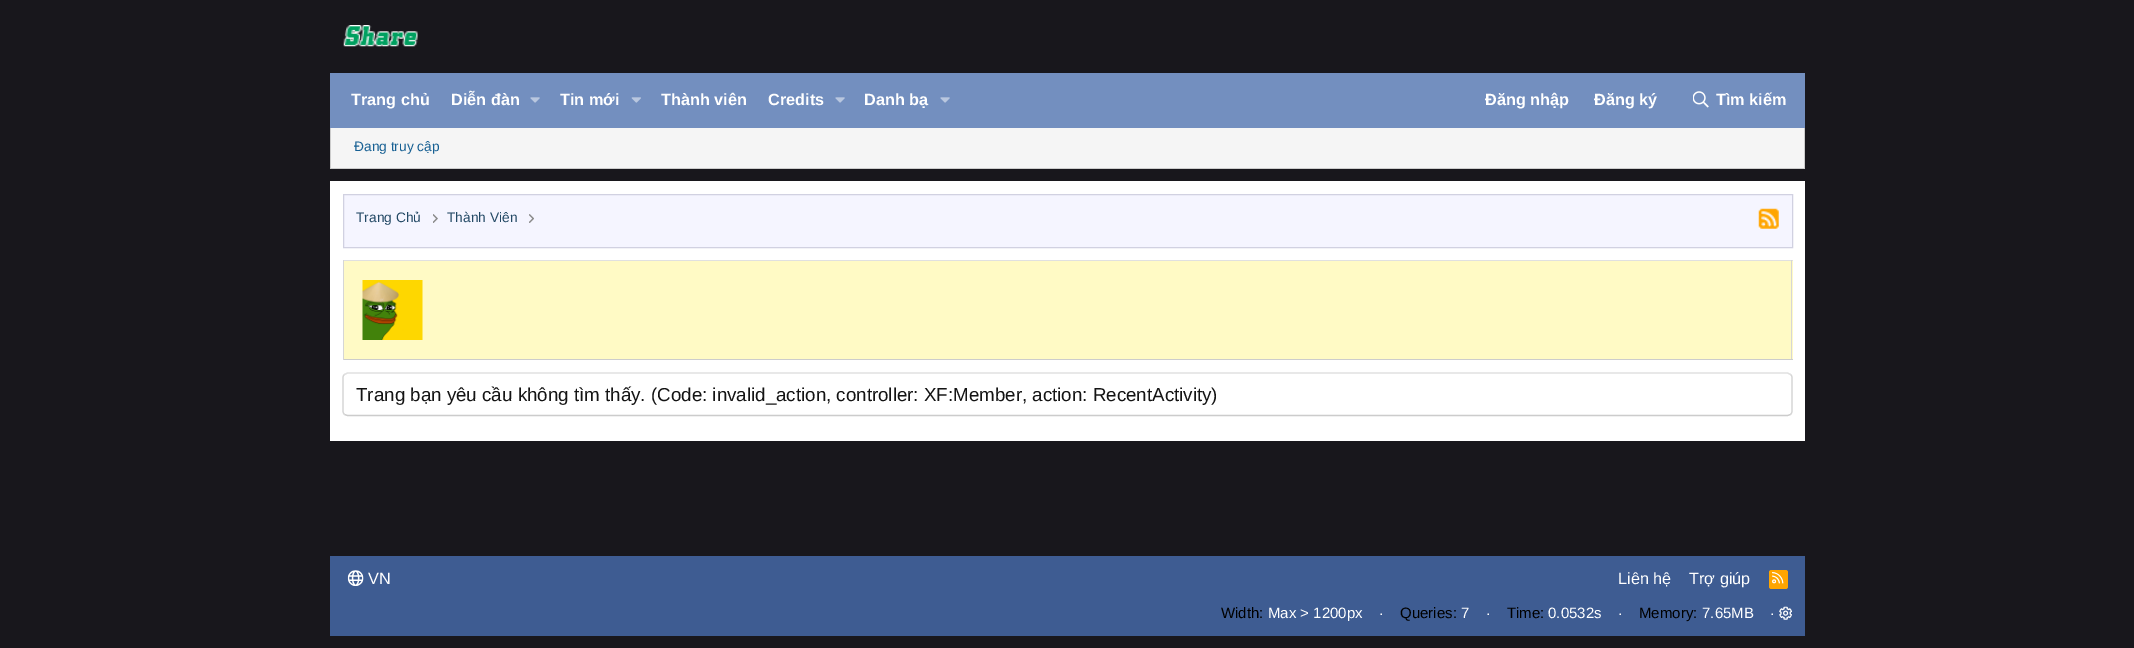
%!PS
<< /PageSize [2134 648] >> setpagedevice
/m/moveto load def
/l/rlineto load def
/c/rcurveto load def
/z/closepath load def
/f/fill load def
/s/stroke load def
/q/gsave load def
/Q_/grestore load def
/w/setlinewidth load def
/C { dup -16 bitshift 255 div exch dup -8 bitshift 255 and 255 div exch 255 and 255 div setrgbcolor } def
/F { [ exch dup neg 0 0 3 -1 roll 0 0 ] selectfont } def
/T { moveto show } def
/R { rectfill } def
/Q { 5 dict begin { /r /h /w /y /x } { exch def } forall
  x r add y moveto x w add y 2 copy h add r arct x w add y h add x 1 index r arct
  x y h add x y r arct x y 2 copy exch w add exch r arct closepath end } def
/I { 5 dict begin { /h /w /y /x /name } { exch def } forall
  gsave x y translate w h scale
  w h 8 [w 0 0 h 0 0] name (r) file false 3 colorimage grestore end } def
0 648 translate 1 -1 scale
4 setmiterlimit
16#18171C C
0 0 2134 648 R
(1.rgb) 343 25 75 22 I
16#738FBF C
330 73 1475 55 R
/LiberationSans-Bold 16.25 F
16#FFFFFF C
(Trang chủ) 351 105 T
(Diễn đàn) 451 105 T
(2.rgb) 530 97 10 6 I
(Tin mới) 560 105 T
(3.rgb) 631 97 10 6 I
(Thành viên) 661 105 T
(Credits) 768 105 T
(2.rgb) 835 97 10 6 I
(Danh bạ) 864 105 T
(2.rgb) 940 97 10 6 I
(Đăng nhập) 1485 105 T
(Đăng ký) 1594 105 T
(4.rgb) 1693 91 16 17 I
(Tìm kiếm) 1716 105 T
16#F5F5F5 C
331 128 1473 40 R
16#CCCCCC C
1804 128 1 41 R
330 168 1475 1 R
330 128 1 41 R
/LiberationSans-Regular 13.75 F
16#176093 C
(Đang truy cập) 354 151 T
16#FFFFFF C
330 181 1475 260 R
16#F5F5FF C
343.5 194.5 m 1449 0 l 0 53 l -1449 0 l z q f Q_
16#D1D1E1 C
s
16#234965 C
(Trang Chủ) 356 222 T
(5.rgb) 433 214 5 9 I
(Thành Viên) 447 222 T
(6.rgb) 529 214 5 9 I
(7.rgb) 1758 208 21 21 I
16#FFFAC5 C
344 261 1449 98 R
16#E0E0E0 C
343 260 1450 1 R
16#D6D6D6 C
1791 260 1 100 R
16#CCCCCC C
343 359 1450 1 R
16#D6D6D6 C
343 260 1 100 R
(8.rgb) 362 280 61 60 I
16#E0E0E0 C
1.2 w
344.5 374.5 m 3 -1.5 l 1440 0 l 3 1.5 l s
16#D6D6D6 C
1790.5 374.5 m 1 .5 1.5 2 1.5 3 c 0 33.5 l 0 1.5 -.5 2.5 -1.5 3.5 c s
16#CCCCCC C
1790.5 414.5 m -3 1 l -1440 0 l -3 -1 l s
16#D6D6D6 C
344.5 414.5 m -1 -1 -1.5 -2 -1.5 -3.5 c 0 -33.5 l 0 -1 .5 -2.5 1.5 -3 c s
/LiberationSans-Regular 18.75 F
16#141414 C
(Trang bạn yêu cầu không tìm thấy. \(Code: invalid_action, controller: XF:Member, action: RecentActivity\)) 356 401 T
16#3E5C92 C
330 556 1475 80 R
(9.rgb) 347 570 17 16 I
/LiberationSans-Regular 16.25 F
16#FFFFFF C
(VN) 368 584 T
(Liên hệ) 1618 584 T
(Trợ giúp) 1689 584 T
16#FFA500 C
1769 570 19 19 2.5 Q f
(10.rgb) 1772 572 12 12 I
/LiberationSans-Regular 15 F
16#000000 C
(Width:) 1221 618 T
16#FFFFFF C
(Max > 1200px) 1268 618 T
/LiberationSans-Regular 13.75 F
(·) 1379 618 T
/LiberationSans-Regular 15 F
16#000000 C
(Queries:) 1400 618 T
16#FFFFFF C
(7) 1461 618 T
/LiberationSans-Regular 13.75 F
(·) 1486 618 T
/LiberationSans-Regular 15 F
16#000000 C
(Time:) 1507 618 T
16#FFFFFF C
(0.0532s) 1548 618 T
/LiberationSans-Regular 13.75 F
(·) 1618 618 T
/LiberationSans-Regular 15 F
16#000000 C
(Memory:) 1639 618 T
16#FFFFFF C
(7.65MB) 1702 618 T
/LiberationSans-Regular 13.75 F
(·) 1770 618 T
(11.rgb) 1779 606 13 14 I
showpage
